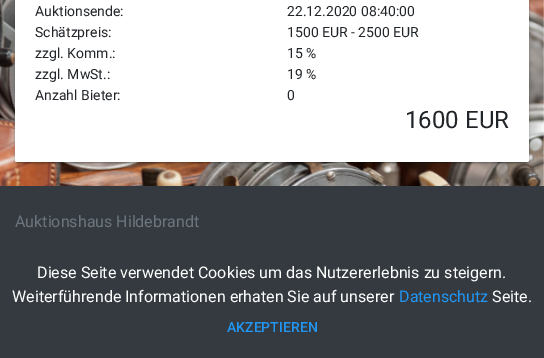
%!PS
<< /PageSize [544 358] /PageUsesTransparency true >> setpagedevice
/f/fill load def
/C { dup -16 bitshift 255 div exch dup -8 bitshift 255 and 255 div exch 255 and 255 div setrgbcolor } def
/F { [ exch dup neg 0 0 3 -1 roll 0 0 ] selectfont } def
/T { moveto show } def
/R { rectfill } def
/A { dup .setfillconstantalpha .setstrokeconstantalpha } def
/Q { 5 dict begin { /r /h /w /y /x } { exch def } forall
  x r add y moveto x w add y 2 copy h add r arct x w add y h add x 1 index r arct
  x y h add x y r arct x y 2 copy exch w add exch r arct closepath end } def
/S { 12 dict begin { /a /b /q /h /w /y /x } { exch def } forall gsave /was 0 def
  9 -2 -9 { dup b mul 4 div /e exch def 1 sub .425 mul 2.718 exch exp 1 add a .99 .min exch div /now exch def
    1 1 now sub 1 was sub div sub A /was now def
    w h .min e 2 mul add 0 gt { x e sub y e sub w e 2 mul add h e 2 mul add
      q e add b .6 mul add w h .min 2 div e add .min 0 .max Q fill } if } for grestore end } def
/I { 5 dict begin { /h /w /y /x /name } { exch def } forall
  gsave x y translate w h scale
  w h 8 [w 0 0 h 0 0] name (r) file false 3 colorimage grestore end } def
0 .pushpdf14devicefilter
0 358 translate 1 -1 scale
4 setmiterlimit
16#FFFFFF C
0 0 544 358 R
(1.rgb) 0 0 544 186 I
16#000000 C
15 -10 514 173 2 2.5 .12 S
17 -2 510 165 0 .5 .2 S
15 -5 514 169 2 1 .14 S
16#FFFFFF C
15 -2 514 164 2 Q f
/Roboto-Regular 14 F
16#212529 C
(Auktionsende:) 35 16 T
(22.12.2020 08:40:00) 287 16 T
(Schätzpreis:) 35 37 T
(1500 EUR - 2500 EUR) 287 37 T
(zzgl. Komm.:) 35 58 T
(15 %) 287 58 T
(zzgl. MwSt.:) 35 79 T
(19 %) 287 79 T
(Anzahl Bieter:) 35 100 T
(0) 287 100 T
/Roboto-Regular 24 F
(1600 EUR) 405 128 T
16#343A40 C
0 186 544 172 R
/Roboto-Regular 16 F
16#6C757D C
(Auktionshaus Hildebrandt) 15 227 T
16#FFFFFF C
(Diese Seite verwendet Cookies um das Nutzererlebnis zu steigern.) 37 278 T
(Weiterführende Informationen erhaten Sie auf unserer) 12 302 T
16#2196F3 C
(Datenschutz) 399 302 T
16#FFFFFF C
(Seite.) 492 302 T
/Roboto-Medium 14 F
16#2196F3 C
(AKZEPTIEREN) 227 332 T
.poppdf14devicefilter showpage
